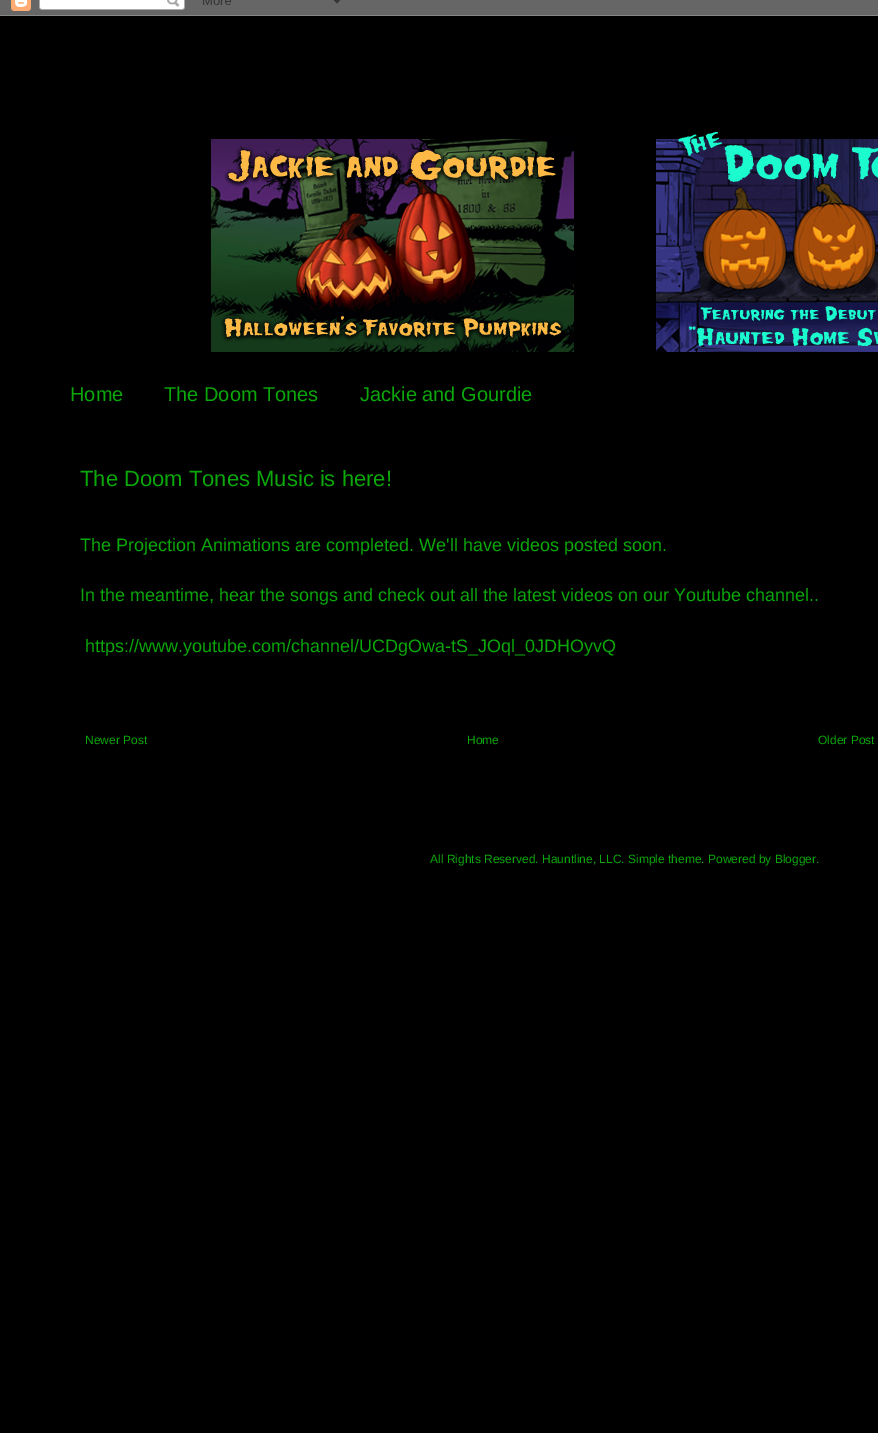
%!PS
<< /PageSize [878 1433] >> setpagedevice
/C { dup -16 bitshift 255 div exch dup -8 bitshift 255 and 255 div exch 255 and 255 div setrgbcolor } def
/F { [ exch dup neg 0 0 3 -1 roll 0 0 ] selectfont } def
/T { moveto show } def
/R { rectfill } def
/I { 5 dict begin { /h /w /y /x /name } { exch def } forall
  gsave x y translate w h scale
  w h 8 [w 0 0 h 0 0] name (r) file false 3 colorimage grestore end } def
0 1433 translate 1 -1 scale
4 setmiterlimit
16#000000 C
0 0 878 1433 R
(1.rgb) 0 0 878 16 I
(2.rgb) 211 132 667 220 I
/LiberationSans-Regular 20 F
16#0BA70B C
(Home) 70 401 T
(The Doom Tones) 164 401 T
(Jackie and Gourdie) 360 401 T
/LiberationSans-Regular 22 F
(The Doom Tones Music is here!) 80 486 T
/LiberationSans-Regular 18 F
(The Projection Animations are completed. We'll have videos posted soon.) 80 551 T
(In the meantime, hear the songs and check out all the latest videos on our Youtube channel..) 80 601 T
(https://www.youtube.com/channel/UCDgOwa-tS_JOql_0JDHOyvQ) 85 652 T
/LiberationSans-Regular 12 F
(Newer Post) 85 744 T
(Home) 467 744 T
(Older Post) 818 744 T
(All Rights Reserved. Hauntline, LLC. Simple theme. Powered by Blogger.) 430 863 T
showpage
